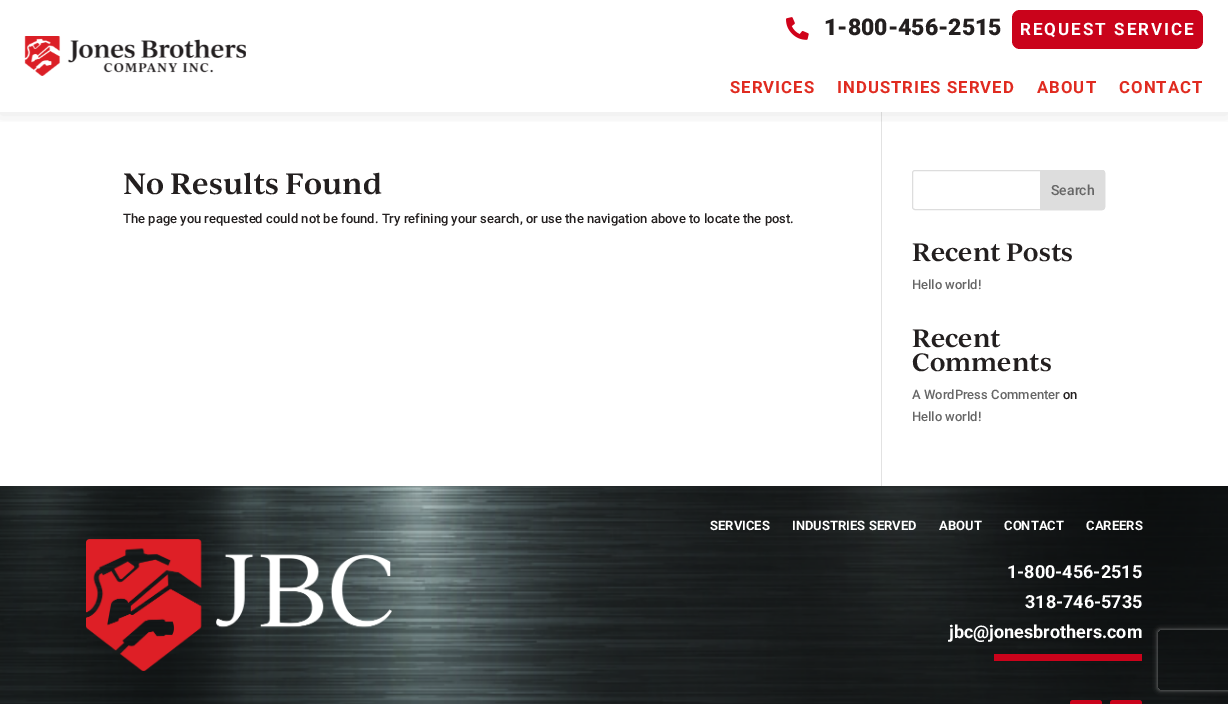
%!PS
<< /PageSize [1228 704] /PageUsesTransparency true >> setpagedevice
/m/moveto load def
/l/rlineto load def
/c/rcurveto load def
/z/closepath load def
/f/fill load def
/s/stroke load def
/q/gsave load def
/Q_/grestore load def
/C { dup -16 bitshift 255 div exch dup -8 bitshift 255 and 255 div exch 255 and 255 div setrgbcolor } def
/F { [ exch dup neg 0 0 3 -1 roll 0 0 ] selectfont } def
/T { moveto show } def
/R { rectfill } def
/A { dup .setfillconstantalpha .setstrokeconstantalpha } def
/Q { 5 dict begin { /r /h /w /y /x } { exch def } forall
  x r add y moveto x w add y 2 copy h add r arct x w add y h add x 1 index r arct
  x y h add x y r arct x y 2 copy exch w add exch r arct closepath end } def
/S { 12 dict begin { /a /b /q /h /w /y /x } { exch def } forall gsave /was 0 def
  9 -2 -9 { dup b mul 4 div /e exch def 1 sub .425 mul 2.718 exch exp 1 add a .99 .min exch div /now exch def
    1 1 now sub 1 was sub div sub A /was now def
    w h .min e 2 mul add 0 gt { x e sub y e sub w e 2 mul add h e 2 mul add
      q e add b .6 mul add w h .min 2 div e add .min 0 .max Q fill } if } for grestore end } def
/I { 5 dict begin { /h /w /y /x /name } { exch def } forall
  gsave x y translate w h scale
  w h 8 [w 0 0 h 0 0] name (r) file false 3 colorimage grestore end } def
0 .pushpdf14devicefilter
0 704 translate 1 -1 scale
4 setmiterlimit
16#FFFFFF C
0 0 1228 704 R
16#E2E2E2 C
881 112 1 374 R
q
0 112 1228 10 rectclip
16#000000 C
0 2 1228 112 0 9 .1 S
Q_
(1.rgb) 24 36 222 40 I
(2.rgb) 786 17 23 23 I
/Roboto-Black 23 F
16#231F1F C
(1-800-456-2515) 824 35 T
16#CA031B C
1012 10 191 39 8 Q f
/Roboto-Bold 17 F
16#FFFFFF C
1020 35 m 2 0 (REQUEST SERVICE) ashow
/Roboto-Bold 16.75 F
16#E02B20 C
730 93 m 1 0 (SERVICES) ashow
837 93 m 1 0 (INDUSTRIES SERVED) ashow
1037 93 m 1 0 (ABOUT) ashow
1119 93 m 1 0 (CONTACT) ashow
/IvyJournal-SemiBold 28 F
16#231F1F C
(No Results Found) 123 194 T
/Roboto-Medium 13 F
(The page you requested could not be found. Try refining your search, or use the navigation above to locate the post.) 123 223 T
16#DDDDDD C
912.5 170.5 192 39 2.5 Q s
1040.5 170.5 m 61.5 0 l 1.5 0 2.5 1 2.5 2.5 c 0 34 l 0 1.5 -1 2.5 -2.5 2.5 c -61.5 0 l z q f Q_
s
/Roboto-Medium 14 F
16#666666 C
(Search) 1051 195 T
/IvyJournal-SemiBold 24 F
16#231F1F C
(Recent Posts) 912 261 T
/Roboto-Medium 13 F
16#666666 C
(Hello world!) 912 289 T
/IvyJournal-SemiBold 24 F
16#231F1F C
(Recent) 912 347 T
(Comments) 912 371 T
/Roboto-Medium 13 F
16#666666 C
(A WordPress Commenter) 912 399 T
16#231F1F C
(on) 1063 399 T
16#666666 C
(Hello world!) 912 421 T
(3.rgb) 0 486 1228 218 I
(4.rgb) 86 539 306 132 I
/Roboto-Bold 13 F
16#FFFFFF C
(SERVICES) 710 530 T
(INDUSTRIES SERVED) 792 530 T
(ABOUT) 939 530 T
(CONTACT) 1004 530 T
(CAREERS) 1086 530 T
/Roboto-Bold 18 F
(1-800-456-2515) 1007 578 T
(318-746-5735) 1025 608 T
(jbc@jonesbrothers.com) 949 638 T
16#CA031B C
994 654 148 7 R
1070 700 32 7 3 Q f
1110 700 32 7 3 Q f
q
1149 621 m 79 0 l 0 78 l -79 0 l z 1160 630 m 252 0 l 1 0 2 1 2 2 c 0 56 l 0 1 -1 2 -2 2 c -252 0 l -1 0 -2 -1 -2 -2 c 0 -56 l 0 -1 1 -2 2 -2 c z eoclip newpath
16#808080 C
1158 630 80 60 2 2.5 1 S
Q_
.poppdf14devicefilter showpage
